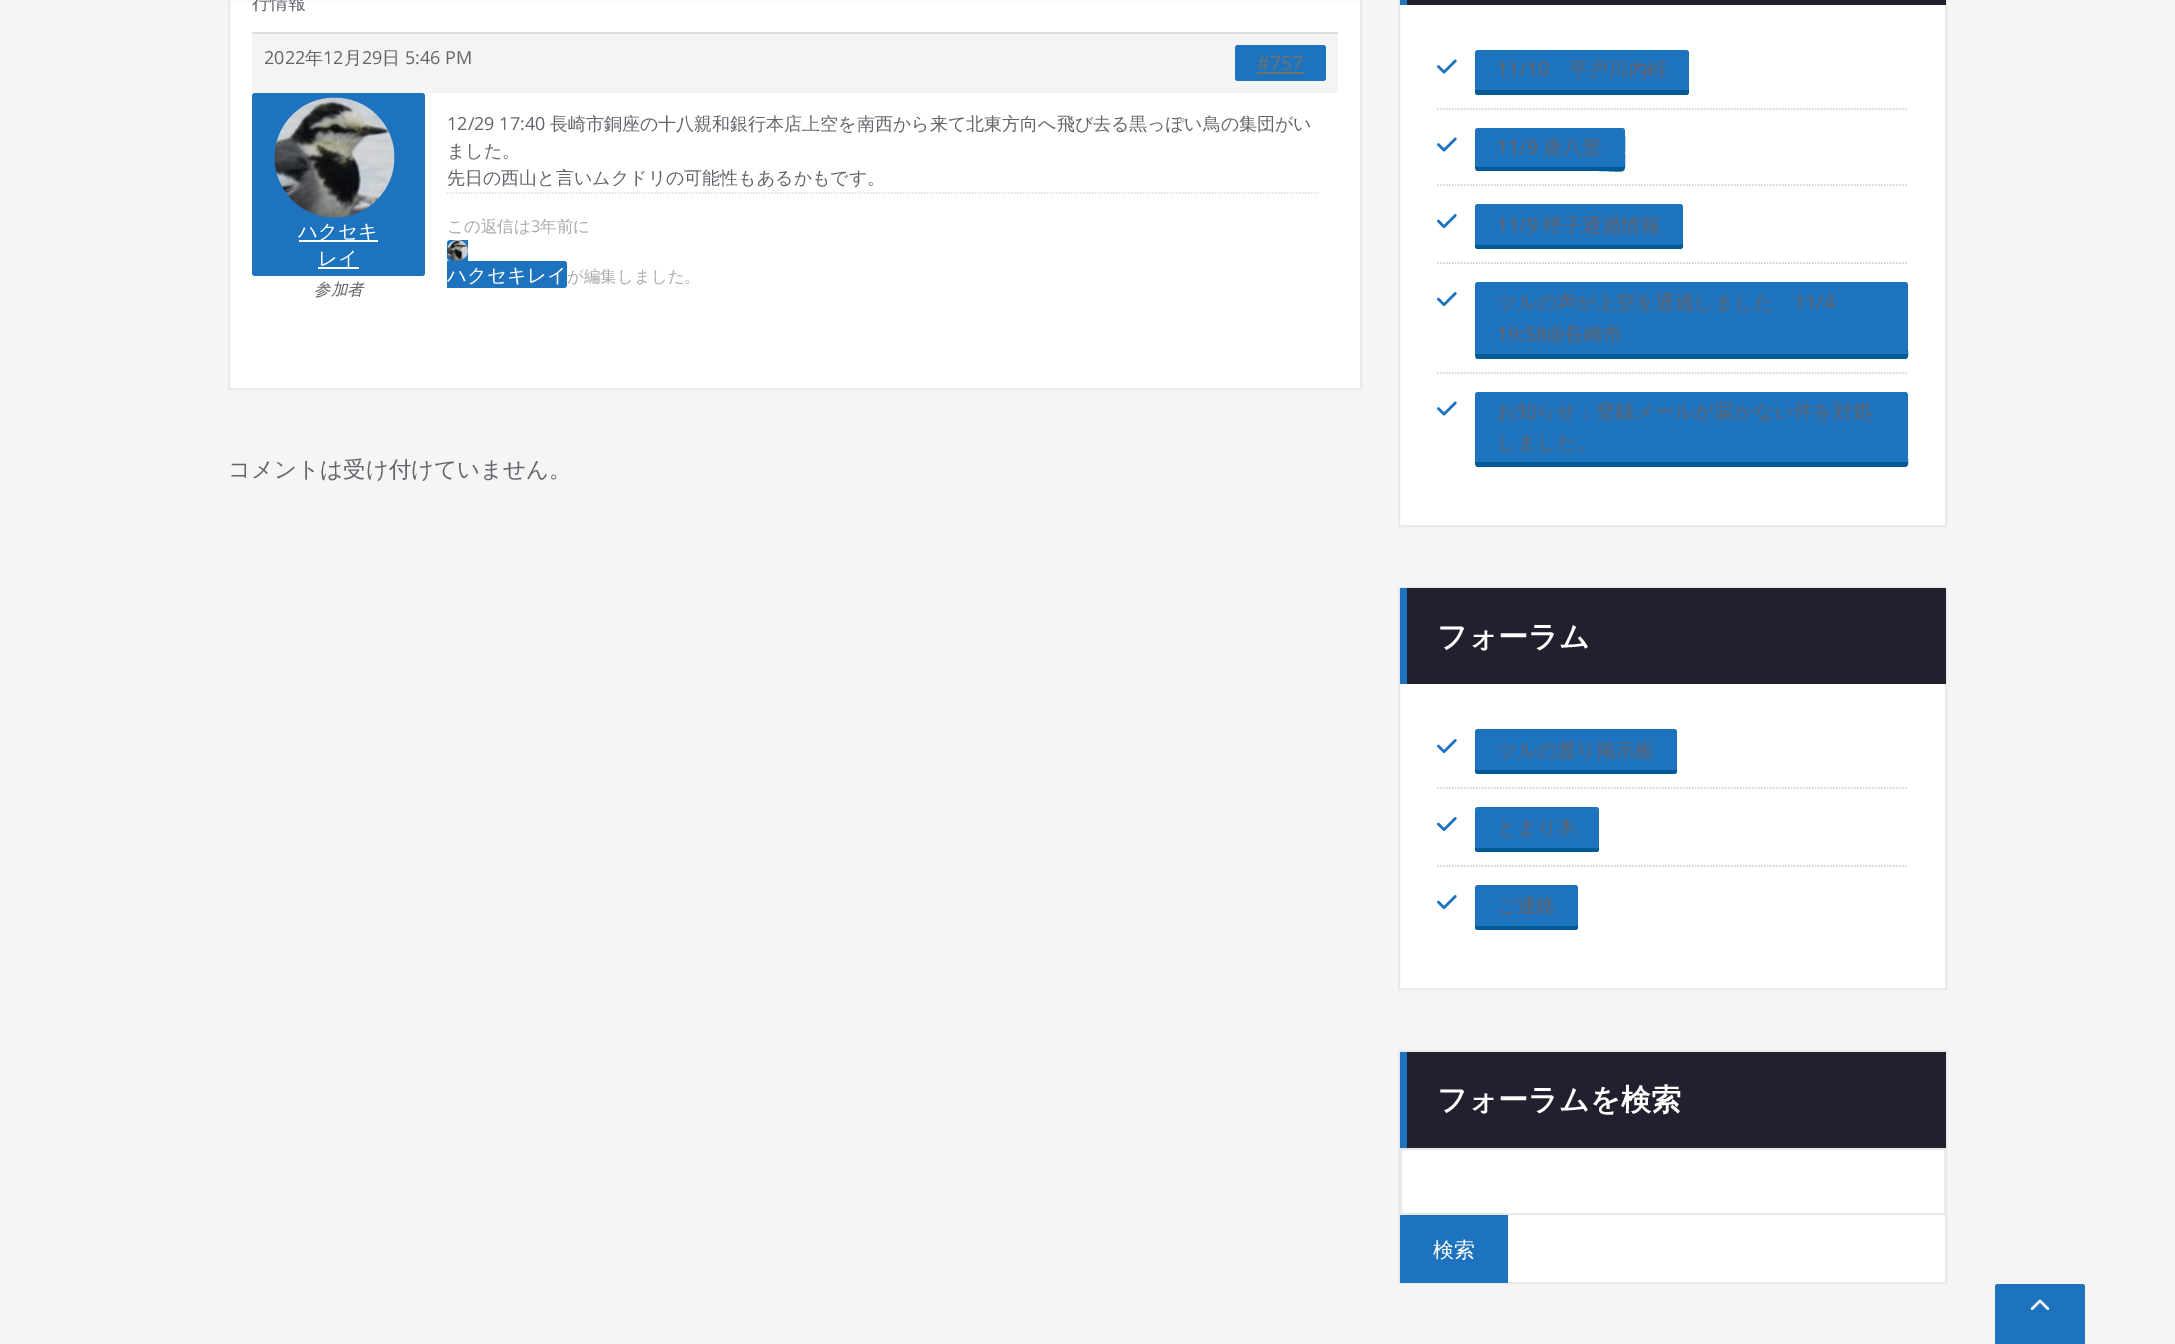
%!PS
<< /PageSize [2175 1344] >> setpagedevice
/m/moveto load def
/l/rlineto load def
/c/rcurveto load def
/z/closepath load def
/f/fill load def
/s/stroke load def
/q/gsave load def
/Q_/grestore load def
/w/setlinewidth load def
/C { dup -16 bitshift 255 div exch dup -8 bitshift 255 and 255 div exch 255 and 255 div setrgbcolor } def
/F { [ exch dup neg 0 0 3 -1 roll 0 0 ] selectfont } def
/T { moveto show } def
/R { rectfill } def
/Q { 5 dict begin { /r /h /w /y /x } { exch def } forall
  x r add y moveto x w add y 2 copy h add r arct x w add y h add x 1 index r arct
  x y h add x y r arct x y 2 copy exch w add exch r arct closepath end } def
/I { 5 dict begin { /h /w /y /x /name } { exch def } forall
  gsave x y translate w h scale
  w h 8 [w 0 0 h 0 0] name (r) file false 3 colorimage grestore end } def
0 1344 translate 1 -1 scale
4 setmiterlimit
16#F5F5F5 C
0 0 2175 1344 R
16#FFFFFF C
229 -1 m 1132 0 l 0 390 l -1132 0 l z q f Q_
16#E9E9E9 C
2 w
s
/WenQuanYiZenHei-Medium 18 F
16#64646D C
(行情報) 252 9 T
16#F4F4F4 C
252 34 1086 59 R
16#DDDDDD C
252 32 1086 2 R
/OpenSans-Regular 18 F
16#64646D C
(2022) 264 64 T
/WenQuanYiZenHei-Medium 18 F
(年) 305 64 T
/OpenSans-Regular 18 F
(12) 323 64 T
/WenQuanYiZenHei-Medium 18 F
(月) 344 64 T
/OpenSans-Regular 18 F
(29) 362 64 T
/WenQuanYiZenHei-Medium 18 F
(日) 382 64 T
/OpenSans-Regular 18 F
(5:46 PM) 405 64 T
16#1E73BE C
1235 45 91 36 3 Q f
/OpenSans-Regular 19.5 F
16#707070 C
(#757) 1257 70 T
1257 72 47 2 R
16#1E73BE C
252 93 173 183 3 Q f
(1.rgb) 274 97 121 121 I
16#FFFFFF C
299 240 79 2 R
/WenQuanYiZenHei-Medium 19.5 F
(ハクセキ) 298 238 T
318 267 41 2 R
(レイ) 318 265 T
/WenQuanYiZenHei-MediumItalic 16.5 F
16#64646D C
(参加者) 314 295 T
/OpenSans-Regular 18 F
(12/29 17:40) 447 130 T
/WenQuanYiZenHei-Medium 18 F
(長崎市銅座の十八親和銀行本店上空を南西から来て北東方向へ飛び去る黒っぽい鳥の集団がい) 550 130 T
(ました。) 447 157 T
(先日の西山と言いムクドリの可能性もあるかもです。) 447 184 T
16#DDDDDD C
1.5 w
[1.5 1.5] 0 setdash
447 193 m 873 0 l s
/WenQuanYiZenHei-Medium 16.5 F
16#AAAAAA C
(この返信は) 447 232 T
/OpenSans-Regular 16.5 F
(3) 531 232 T
/WenQuanYiZenHei-Medium 16.5 F
(年前に) 540 232 T
16#1E73BE C
450 240 m 18 0 l 0 21 l -18 0 l -1.5 0 -3 -1.5 -3 -3 c 0 -15 l 0 -1.5 1.5 -3 3 -3 c z f
447 261 m 117 0 l 1.5 0 3 1.5 3 3 c 0 21 l 0 1.5 -1.5 3 -3 3 c -117 0 l z f
(2.rgb) 447 240 21 21 I
/WenQuanYiZenHei-Medium 19.5 F
16#FFFFFF C
(ハクセキレイ) 447 282 T
/WenQuanYiZenHei-Medium 16.5 F
16#AAAAAA C
(が編集しました。) 567 282 T
/WenQuanYiZenHei-Medium 22.5 F
16#64646D C
(コメントは受け付けていません。) 228 477 T
16#FFFFFF C
1400 5 545 520 R
16#E9E9E9 C
2 w
[] 0 setdash
1399 -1 547 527 rectstroke
16#21202E C
1400 0 546 5 R
16#1E73BE C
1400 0 7 5 R
16#C5D1DC C
1.5 w
[1.5 1.5] 0 setdash
1437 109 m 471 0 l s
(3.rgb) 1437 59 20 15 I
16#005A96 C
1475 89 m 0 3 l 0 2 1 3 3 3 c 208 0 l 2 0 3 -1 3 -3 c 0 -5 l 0 2 -1 3 -3 3 c -208 0 l -2 0 -2 -1 -3 -1 c z f
16#1E73BE C
1475 50 214 40 3 Q f
/OpenSans-Medium 19.5 F
16#64646D C
(11/10) 1497 76 T
/WenQuanYiZenHei-Medium 19.5 F
(平戸川内峠) 1569 76 T
16#C5D1DC C
1437 185 m 471 0 l s
(3.rgb) 1437 137 20 15 I
16#005A96 C
1475 165 m 0 2 0 5 2 6 c 121 0 l 31 0 27 6 27 -19 c 0 -4 1 -16 -1 -19 c 0 31 l 0 1 -1 2 -2 2 c -144 0 l -2 0 -2 0 -3 -1 c z f
16#1E73BE C
1475 128 150 39 3 Q f
/OpenSans-Medium 19.5 F
16#64646D C
(11/9) 1497 154 T
/WenQuanYiZenHei-Medium 19.5 F
(唐八景) 1543 154 T
16#C5D1DC C
1437 263 m 471 0 l s
(4.rgb) 1437 214 20 15 I
16#005A96 C
1475 243 m 0 3 l 0 2 1 3 3 3 c 202 0 l 2 0 3 -1 3 -3 c 0 -4 l 0 1 -1 2 -3 2 c -202 0 l -2 0 -2 0 -3 -1 c z f
16#1E73BE C
1475 204 208 41 3 Q f
/OpenSans-Medium 19.5 F
16#64646D C
(11/9) 1497 232 T
/WenQuanYiZenHei-Medium 19.5 F
(呼子通過情報) 1543 232 T
16#C5D1DC C
1437 373 m 471 0 l s
(4.rgb) 1437 292 20 15 I
16#005A96 C
1475 353 m 0 2 0 6 3 6 c 427 0 l 4 0 3 -6 3 -8 c 0 2 -1 3 -3 3 c -427 0 l -2 0 -2 -1 -3 -1 c z f
16#1E73BE C
1475 282 433 72 3 Q f
16#64646D C
(ツルの声が上空を通過しました) 1497 309 T
/OpenSans-Medium 19.5 F
(11/4) 1794 309 T
(19:58@) 1497 341 T
/WenQuanYiZenHei-Medium 19.5 F
(長崎市) 1564 341 T
(3.rgb) 1437 401 20 15 I
16#005A96 C
1475 461 m 0 2 0 6 3 6 c 427 0 l 4 0 3 -6 3 -8 c 0 2 -1 3 -3 3 c -427 0 l -2 0 -2 -1 -3 -1 c z f
16#1E73BE C
1475 392 433 70 3 Q f
16#64646D C
(お知らせ：登録メールが届かない件を対処) 1497 418 T
(しました。) 1497 449 T
16#FFFFFF C
1400 684 545 304 R
16#E9E9E9 C
2 w
[] 0 setdash
1399 588 547 401 rectstroke
16#21202E C
1407 588 539 96 R
16#1E73BE C
1400 588 7 96 R
/WenQuanYiZenHei-Bold 30 F
16#FFFFFF C
(フォーラム) 1437 647 T
16#C5D1DC C
1.5 w
[1.5 1.5] 0 setdash
1437 788 m 471 0 l s
(4.rgb) 1437 739 20 15 I
16#005A96 C
1475 768 m 0 3 l 0 2 1 3 3 3 c 196 0 l 2 0 3 -1 3 -3 c 0 -5 l 0 2 -1 4 -3 4 c -196 0 l -2 0 -2 -1 -3 -2 c z f
16#1E73BE C
1475 729 202 41 3 Q f
/WenQuanYiZenHei-Medium 19.5 F
16#64646D C
(ツルの渡り掲示板) 1497 757 T
16#C5D1DC C
1437 866 m 471 0 l s
(4.rgb) 1437 817 20 15 I
16#005A96 C
1475 846 m 0 3 l 0 2 1 3 3 3 c 118 0 l 2 0 3 -1 3 -3 c 0 -5 l 0 2 -1 4 -3 4 c -118 0 l -2 0 -2 -1 -3 -2 c z f
16#1E73BE C
1475 807 124 41 3 Q f
16#64646D C
(とまり木) 1497 834 T
(4.rgb) 1437 895 20 15 I
16#005A96 C
1475 924 m 0 3 l 0 2 1 3 3 3 c 97 0 l 2 0 3 -1 3 -3 c 0 -5 l -1 2 l -1 1 l -99 0 l z f
16#1E73BE C
1475 885 103 41 3 Q f
16#64646D C
(ご連絡) 1497 912 T
16#FFFFFF C
1508 1215 437 67 R
16#E9E9E9 C
2 w
[] 0 setdash
1399 1051 547 232 rectstroke
16#21202E C
1407 1052 539 96 R
16#1E73BE C
1400 1052 7 96 R
/WenQuanYiZenHei-Bold 30 F
16#FFFFFF C
(フォーラムを検索) 1437 1110 T
1401 1149 m 544 0 l 0 65 l -544 0 l z q f Q_
16#E9E9E9 C
s
16#1E73BE C
1400 1215 108 68 R
/WenQuanYiZenHei-Medium 21 F
16#FFFFFF C
(検索) 1433 1257 T
16#005A96 C
1995 1341 m 0 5 l 0 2 1 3 3 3 c 84 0 l 2 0 3 -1 3 -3 c 0 -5 l 0 2 -1 3 -3 3 c -84 0 l -2 0 -3 -1 -3 -3 c z f
16#1E73BE C
1995 1284 90 60 3 Q f
(5.rgb) 2030 1299 20 11 I
showpage
